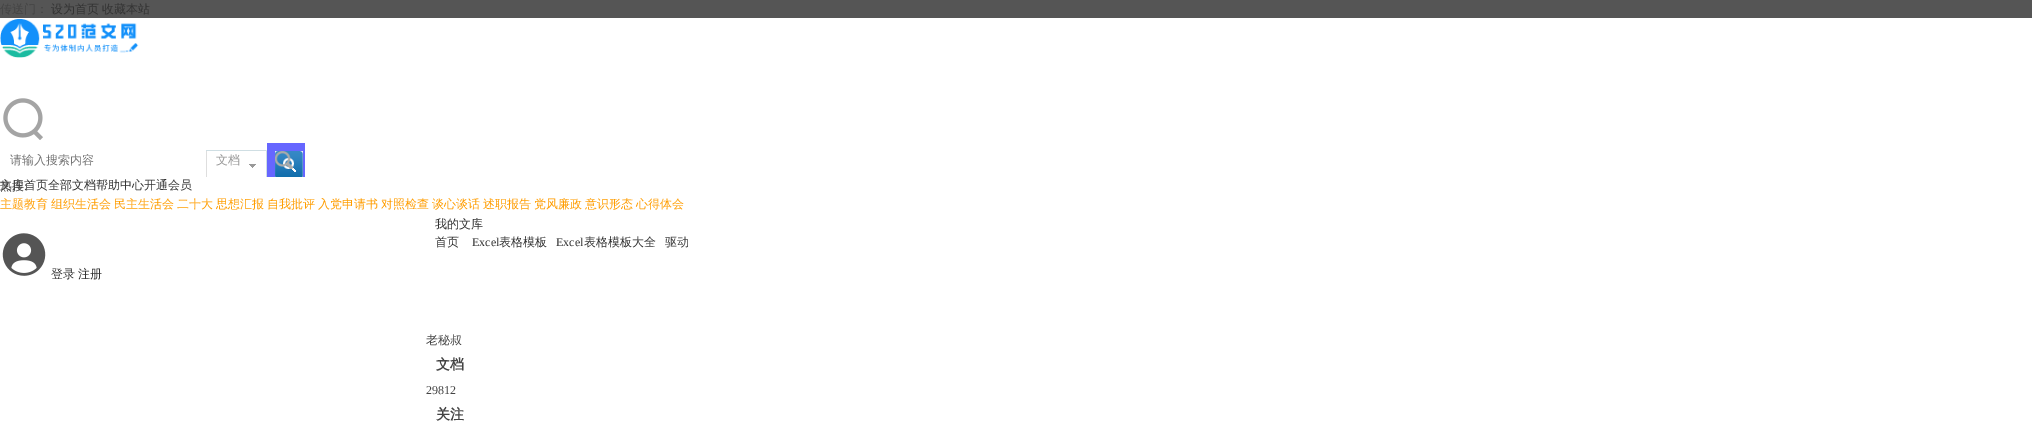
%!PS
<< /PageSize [2032 434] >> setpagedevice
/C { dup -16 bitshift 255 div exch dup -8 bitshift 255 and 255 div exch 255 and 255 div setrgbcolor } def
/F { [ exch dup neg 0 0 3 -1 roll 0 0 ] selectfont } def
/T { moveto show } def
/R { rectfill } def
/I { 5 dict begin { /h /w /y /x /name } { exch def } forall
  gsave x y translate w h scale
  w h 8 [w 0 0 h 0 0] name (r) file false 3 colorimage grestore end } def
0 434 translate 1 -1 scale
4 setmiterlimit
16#FFFFFF C
0 0 2032 434 R
16#555555 C
0 0 2032 18 R
/WenQuanYiZenHei-Medium 12 F
16#444444 C
(传送门：) 0 13 T
16#333333 C
(设为首页) 51 13 T
(收藏本站) 102 13 T
(1.rgb) 0 19 139 39 I
(2.rgb) 3 98 40 42 I
16#757575 C
(请输入搜索内容) 10 164 T
(3.rgb) 206 150 61 27 I
16#999999 C
(文档) 216 164 T
16#6666FF C
267 143 38 34 R
(4.rgb) 275 151 28 26 I
(5.rgb) 275 151 18 18 I
16#333333 C
(文库首页全部文档帮助中心开通会员) 0 189 T
16#444444 C
(热搜) 0 190 T
/LiberationSerif-Regular 12 F
(:) 24 190 T
/WenQuanYiZenHei-Medium 12 F
16#FF9D00 C
(主题教育) 0 208 T
(组织生活会) 51 208 T
(民主生活会) 114 208 T
(二十大) 177 208 T
(思想汇报) 216 208 T
(自我批评) 267 208 T
(入党申请书) 318 208 T
(对照检查) 381 208 T
(谈心谈话) 432 208 T
(述职报告) 483 208 T
(党风廉政) 534 208 T
(意识形态) 585 208 T
(心得体会) 636 208 T
(6.rgb) 2 233 44 43 I
16#333333 C
(登录) 51 278 T
(注册) 78 278 T
(我的文库) 435 228 T
(首页) 435 246 T
/LiberationSerif-Regular 12 F
(Excel) 472 246 T
/WenQuanYiZenHei-Medium 12 F
(表格模板) 499 246 T
/LiberationSerif-Regular 12 F
(Excel) 556 246 T
/WenQuanYiZenHei-Medium 12 F
(表格模板大全) 584 246 T
16#444444 C
(驱动) 665 246 T
(老秘叔) 426 344 T
/WenQuanYiZenHei-Bold 14 F
(文档) 436 369 T
/LiberationSerif-Regular 12 F
(29812) 426 394 T
/WenQuanYiZenHei-Bold 14 F
(关注) 436 419 T
showpage
